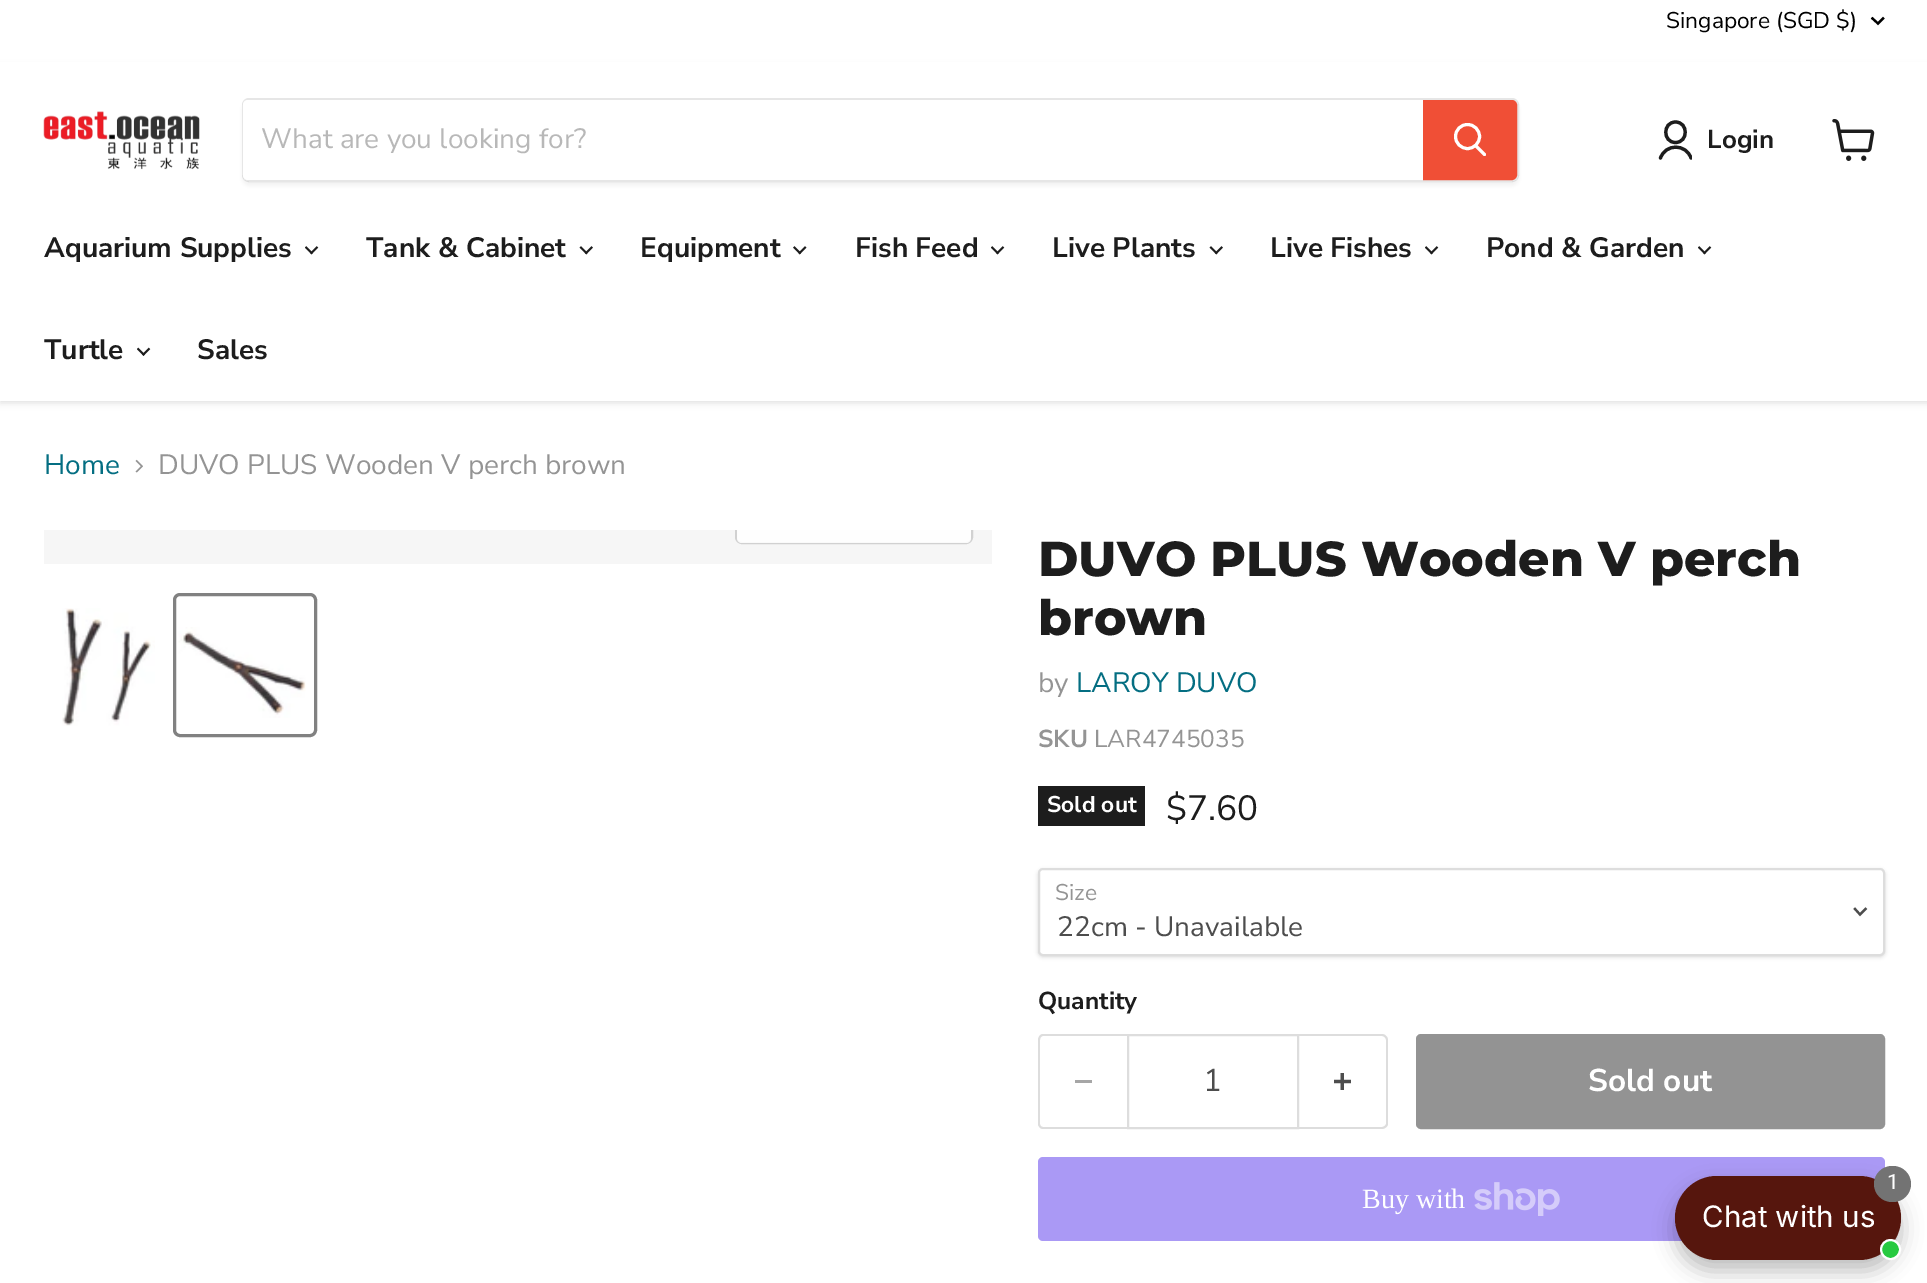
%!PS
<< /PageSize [1927 1283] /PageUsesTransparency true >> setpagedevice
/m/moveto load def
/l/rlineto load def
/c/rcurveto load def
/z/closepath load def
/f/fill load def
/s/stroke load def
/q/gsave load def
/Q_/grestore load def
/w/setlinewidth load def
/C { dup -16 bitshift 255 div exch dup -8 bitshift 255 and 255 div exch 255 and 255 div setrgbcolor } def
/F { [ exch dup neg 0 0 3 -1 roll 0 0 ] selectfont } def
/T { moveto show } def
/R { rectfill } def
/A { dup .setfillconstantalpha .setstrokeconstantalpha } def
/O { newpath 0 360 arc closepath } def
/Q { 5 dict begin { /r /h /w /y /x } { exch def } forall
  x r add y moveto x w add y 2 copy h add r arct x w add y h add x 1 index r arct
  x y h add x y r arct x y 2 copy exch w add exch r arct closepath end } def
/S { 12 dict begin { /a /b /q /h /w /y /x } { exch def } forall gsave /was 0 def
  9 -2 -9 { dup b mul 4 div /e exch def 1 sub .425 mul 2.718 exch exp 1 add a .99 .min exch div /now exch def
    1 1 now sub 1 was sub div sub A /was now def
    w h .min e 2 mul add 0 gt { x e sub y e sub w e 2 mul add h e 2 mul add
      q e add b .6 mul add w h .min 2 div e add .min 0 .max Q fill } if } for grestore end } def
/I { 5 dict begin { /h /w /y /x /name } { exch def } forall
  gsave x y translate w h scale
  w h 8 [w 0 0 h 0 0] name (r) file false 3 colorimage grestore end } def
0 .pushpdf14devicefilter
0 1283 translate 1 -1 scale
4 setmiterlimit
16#FFFFFF C
0 0 1927 1283 R
/NunitoSans-Regular 22.75 F
16#000000 C
(Singapore \(SGD $\)) 1666 28 T
2.2 w
2 setlinecap
1878 23.5 m 5 -5 l 1878 23.5 m -5.5 -5 l s
16#808080 C
0 67 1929 336 0 3.5 .25 S
16#FFFFFF C
0 62 1927 339 R
(1.rgb) 43 111 157 59 I
q
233 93 m 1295 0 l 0 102 l -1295 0 l z 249 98 m 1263 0 l 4 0 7 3 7 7 c 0 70 l 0 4 -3 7 -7 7 c -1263 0 l -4 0 -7 -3 -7 -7 c 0 -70 l 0 -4 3 -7 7 -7 c z eoclip newpath
16#808080 C
242 102 1277 84 7 2.5 .11 S
Q_
0.2 A
16#808080 C
2 w
0 setlinecap
243 99 1275 82 6 Q s
1 A
16#FFFFFF C
248 100 m 1175 0 l 0 80 l -1175 0 l -3 0 -5 -2 -5 -5 c 0 -70 l 0 -3 2 -5 5 -5 c z f
/NunitoSans-Regular 28 F
16#B8B8B8 C
(What are you looking for?) 261 148 T
16#F04F36 C
1424 101 m 88 0 l 2 0 4 2 4 4 c 0 70 l 0 2 -2 4 -4 4 c -88 0 l z q f Q_
s
16#FFFFFF C
3 w
1 setlinecap
1484.5 154.5 m -8.5 -8.5 l s
0 setlinecap
1467.5 136.5 12 O s
16#1D1D1D C
3.2 w
1 setlinecap
1 setlinejoin
1675.5 142.5 m 13 0 13 -20.5 0 -20.5 c -13 0 -13 20.5 0 20.5 c z s
q
1657 119 35 42 rectclip
1691 158 m -5 -14.5 -25.5 -14.5 -30.5 0 c s
Q_
/NunitoSans-Bold 26 F
(Login) 1707 148 T
(2.rgb) 1832 119 43 42 I
/NunitoSans-Bold 28 F
(Aquarium Supplies) 44 257 T
(3.rgb) 305 246 14 9 I
(Tank & Cabinet) 366 257 T
(4.rgb) 579 246 14 9 I
(Equipment) 640 257 T
(5.rgb) 793 246 14 9 I
(Fish Feed) 855 257 T
(3.rgb) 991 246 14 9 I
(Live Plants) 1052 257 T
(4.rgb) 1209 246 14 9 I
(Live Fishes) 1270 257 T
(3.rgb) 1425 246 14 9 I
(Pond & Garden) 1486 257 T
(3.rgb) 1698 246 14 9 I
(Turtle) 44 359 T
(6.rgb) 137 347 14 9 I
(Sales) 197 359 T
/NunitoSans-Regular 28 F
16#046E82 C
(Home) 44 474 T
(7.rgb) 135 459 8 14 I
16#949494 C
(DUVO PLUS Wooden V perch brown) 158 474 T
16#F6F6F6 C
44 530 948 34 R
q
44 530 948 34 rectclip
16#D1D1D1 C
2 w
0 setlinecap
0 setlinejoin
736 493 236 50 6 Q s
Q_
0.9 A
16#FFFFFF C
737 530 m 234 0 l 0 8 l 0 3 -2 5 -5 5 c -224 0 l -3 0 -5 -2 -5 -5 c z f
1 A
(8.rgb) 62 608 93 118 I
16#818181 C
3 w
0 setlinecap
0 setlinejoin
174.5 594.5 141 141 5.5 Q s
(9.rgb) 178 627 128 91 I
/Montserrat-ExtraBold 49 F
16#1D1D1D C
(DUVO PLUS Wooden V perch) 1038 576 T
(brown) 1038 635 T
/NunitoSans-Regular 28 F
16#949494 C
(by) 1038 692 T
16#046E82 C
(LAROY DUVO) 1076 692 T
/NunitoSans-Bold 24.5 F
16#949494 C
(SKU) 1038 747 T
/NunitoSans-Regular 24.5 F
(LAR4745035) 1094 747 T
16#1D1D1D C
1038 786 107 40 R
/NunitoSans-Bold 22.75 F
16#FFFFFF C
(Sold out) 1047 812 T
/NunitoSans-Regular 35 F
16#1D1D1D C
($7.60) 1166 820 T
16#000000 C
1038 870 847 87 5 2 .15 S
16#FFFFFF C
1039 869 845 86 4 Q q f Q_
16#DDDDDD C
2 w
s
/NunitoSans-Regular 22.75 F
16#949494 C
(Size) 1055 900 T
16#4D4D4D C
2.2 w
2 setlinecap
1860 914.5 m 5.5 -5.5 l 1860 914.5 m -5 -5.5 l s
/NunitoSans-Regular 28 F
(22cm - Unavailable) 1057 936 T
/NunitoSans-Bold 24.5 F
16#1D1D1D C
(Quantity) 1038 1009 T
16#DDDDDD C
1043 1034 m 84 0 l 0 95 l -84 0 l -3 0 -5 -3 -5 -5 c 0 -84 l 0 -3 2 -6 5 -6 c z 1043 1036 m 84 0 l 0 91 l -84 0 l -2 0 -3 -2 -3 -3 c 0 -84 l 0 -2 1 -4 3 -4 c z eofill
16#A6A6A6 C
1075 1080 17 3 R
16#DDDDDD C
2 w
0 setlinecap
1128 1035 170 93 rectstroke
/NunitoSans-Regular 31.5 F
16#4D4D4D C
(1) 1203 1091 T
16#DDDDDD C
1298 1034 m 84 0 l 3 0 6 3 6 6 c 0 84 l 0 2 -3 5 -6 5 c -84 0 l z 1298 1036 m 84 0 l 2 0 4 2 4 4 c 0 84 l 0 1 -2 3 -4 3 c -84 0 l z eofill
(10.rgb) 1334 1073 17 17 I
16#939393 C
1417 1035 467 93 4 Q q f Q_
s
/NunitoSans-Bold 31.5 F
16#FFFFFF C
(Sold out) 1588 1091 T
16#AA99F5 C
1038 1157 847 84 5 Q f
/LiberationSerif-Regular 28 F
16#FFFFFF C
(Buy with) 1362 1208 T
(11.rgb) 1474 1182 86 34 I
16#000000 C
1675 1187 226 84 42 10.5 .25 S
16#56160D C
1675 1176 226 84 42 Q f
16#737373 C
1874 1166 37 36 18 Q f
/Roboto-Regular 21 F
16#FFFFFF C
(1) 1887 1189 T
/Inter-Regular 29.5 F
(Chat with us) 1702 1227 T
16#27CA40 C
1890.5 1249.5 9.5 O q f Q_
16#FFFFFF C
s
.poppdf14devicefilter showpage
